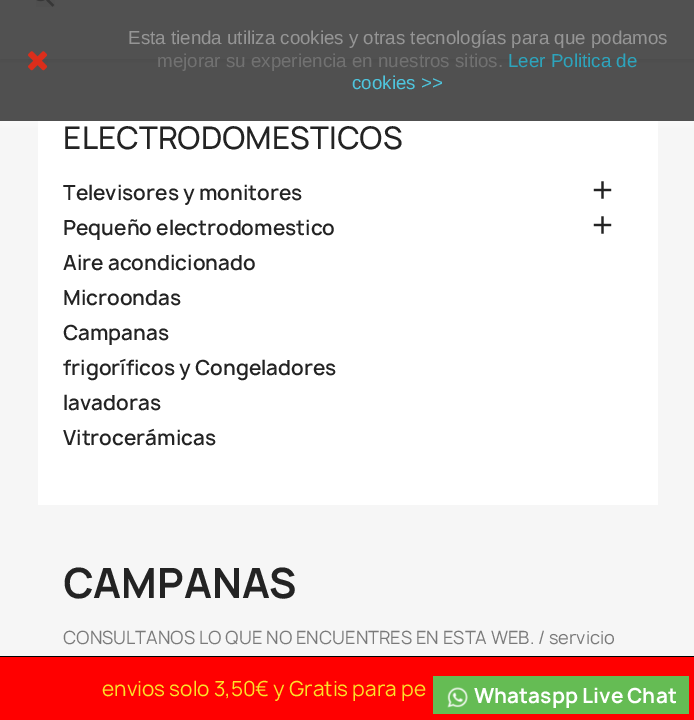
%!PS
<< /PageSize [694 720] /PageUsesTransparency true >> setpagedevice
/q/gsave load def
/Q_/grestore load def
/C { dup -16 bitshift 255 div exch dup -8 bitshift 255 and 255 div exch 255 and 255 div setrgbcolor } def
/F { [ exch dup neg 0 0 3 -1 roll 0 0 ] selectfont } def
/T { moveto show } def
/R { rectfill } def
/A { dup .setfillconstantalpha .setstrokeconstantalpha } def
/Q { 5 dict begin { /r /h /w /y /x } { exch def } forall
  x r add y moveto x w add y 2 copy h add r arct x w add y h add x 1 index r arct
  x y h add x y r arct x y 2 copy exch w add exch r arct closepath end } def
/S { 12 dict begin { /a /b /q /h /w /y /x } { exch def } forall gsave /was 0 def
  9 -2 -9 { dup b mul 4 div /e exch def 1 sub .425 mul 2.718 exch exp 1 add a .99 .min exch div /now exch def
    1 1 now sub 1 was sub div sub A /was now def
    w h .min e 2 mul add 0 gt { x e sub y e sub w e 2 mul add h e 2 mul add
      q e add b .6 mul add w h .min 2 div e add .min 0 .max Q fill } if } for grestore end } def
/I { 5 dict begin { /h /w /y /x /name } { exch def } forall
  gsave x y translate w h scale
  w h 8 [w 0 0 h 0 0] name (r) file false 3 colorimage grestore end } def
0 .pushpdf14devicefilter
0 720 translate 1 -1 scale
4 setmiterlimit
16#F6F6F6 C
0 0 694 720 R
16#505050 C
0 59 694 62 R
16#1E1E1E C
0 -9 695 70 0 3 .11 S
16#515151 C
0 0 694 59 R
(1.rgb) 36 0 19 7 I
16#FFFFFF C
38 121 620 384 R
q
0 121 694 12 rectclip
0 0 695 121 0 6 .8 S
Q_
(2.rgb) 28 51 20 20 I
/LiberationSans-Regular 18.75 F
16#959595 C
(Esta tienda utiliza cookies y otras tecnologías para que podamos) 128 44 T
16#717171 C
(mejorar su experiencia en nuestros sitios.) 157 67 T
16#2DA4BC C
(Leer Politica de) 508 67 T
16#4EC5DD C
(cookies >>) 352 89 T
16#FF0000 C
0 657 694 63 R
16#65BC54 C
433 676 256 38 R
(3.rgb) 447 687 21 21 I
/Manrope-Bold 20 F
16#FFFFFF C
(Whataspp Live Chat) 474 703 T
/Manrope-Medium 30 F
16#232323 C
(ELECTRODOMESTICOS) 63 149 T
/Manrope-SemiBold 20 F
(Televisores y monitores) 63 200 T
(4.rgb) 593 181 19 18 I
(Pequeño electrodomestico) 63 235 T
(4.rgb) 593 216 19 18 I
(Aire acondicionado) 63 270 T
(Microondas) 63 305 T
(Campanas) 63 340 T
(frigoríficos y Congeladores) 63 375 T
(lavadoras) 63 410 T
(Vitrocerámicas) 63 445 T
/Manrope-Bold 40 F
(CAMPANAS) 63 598 T
/Manrope-Regular 17.5 F
16#7A7A7A C
(CONSULTANOS LO QUE NO ENCUENTRES EN ESTA WEB. / servicio) 63 644 T
16#000000 C
0 656 694 1 R
/Manrope-Regular 20 F
16#FBE329 C
(envios solo 3,50€ y Gratis para pe) 102 696 T
.poppdf14devicefilter showpage
